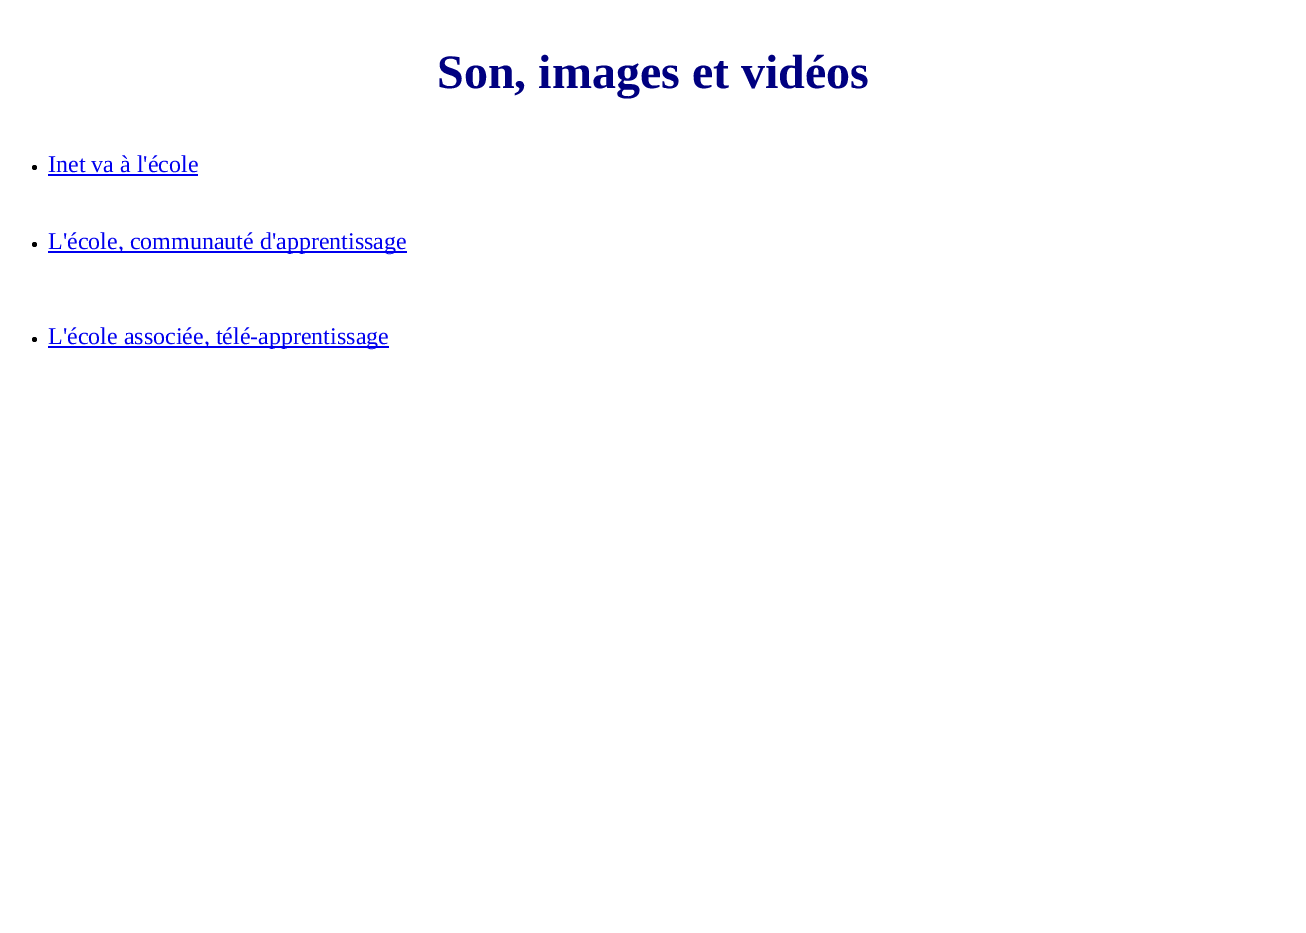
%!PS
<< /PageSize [1306 933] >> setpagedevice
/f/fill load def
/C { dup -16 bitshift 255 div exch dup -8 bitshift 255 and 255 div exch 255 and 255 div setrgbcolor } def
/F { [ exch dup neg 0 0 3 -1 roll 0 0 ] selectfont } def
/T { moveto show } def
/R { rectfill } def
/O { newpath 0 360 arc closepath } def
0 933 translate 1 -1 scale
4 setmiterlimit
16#FFFFFF C
0 0 1306 933 R
/LiberationSerif-Bold 48 F
16#000080 C
(Son, images et vidéos) 437 88 T
16#000000 C
34.5 167.5 2.5 O f
/LiberationSerif-Regular 24 F
16#0000EE C
(Inet va à l'école) 48 172 T
48 174 150 2 R
16#000000 C
34.5 244.5 2.5 O f
16#0000EE C
48 251 359 2 R
(L'école, communauté d'apprentissage) 48 249 T
16#000000 C
34.5 339.5 2.5 O f
16#0000EE C
48 346 341 2 R
(L'école associée, télé-apprentissage) 48 344 T
showpage
